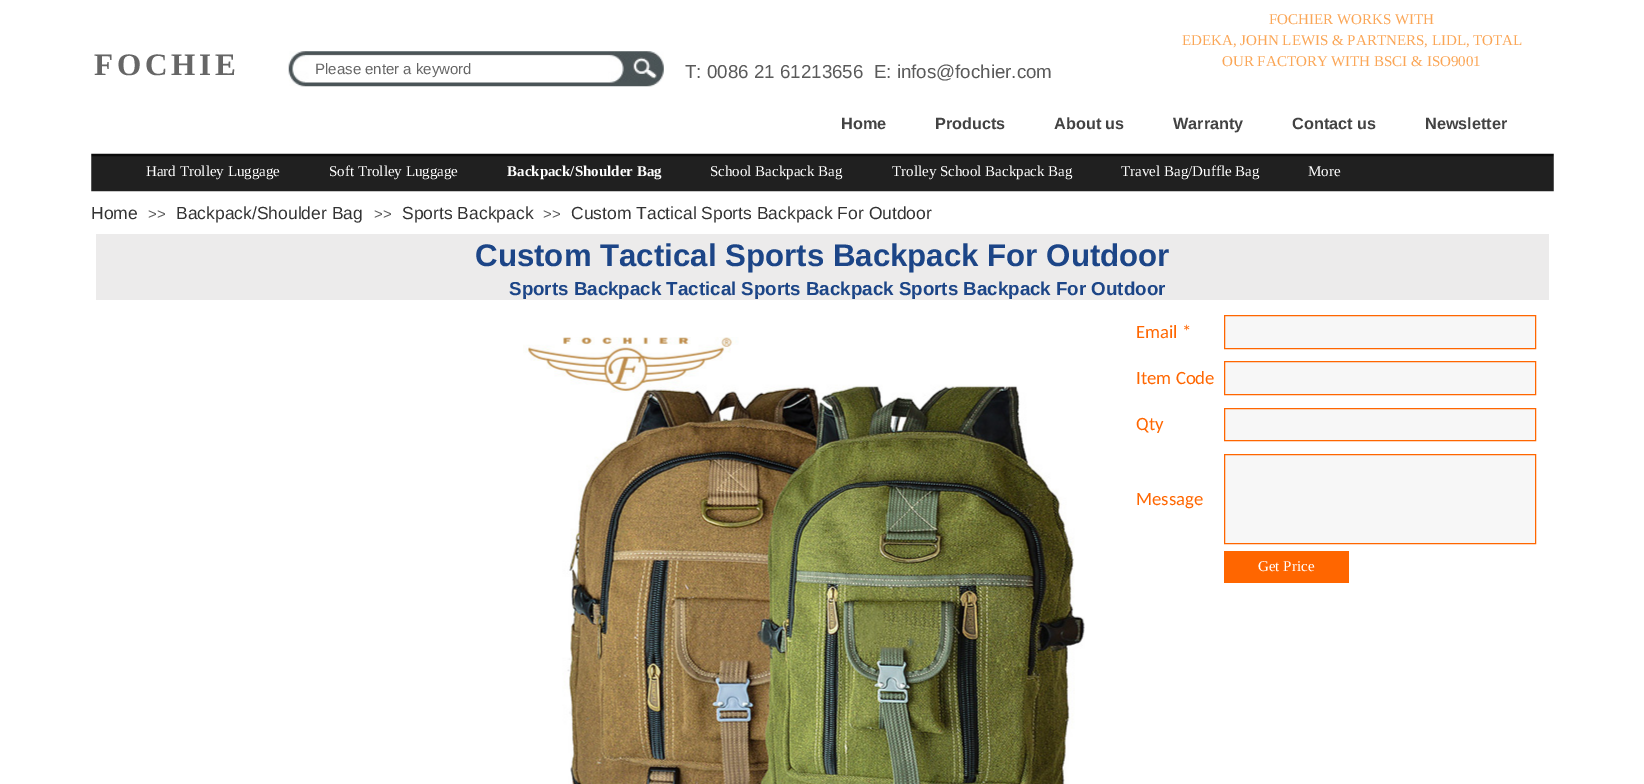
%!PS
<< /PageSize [1644 784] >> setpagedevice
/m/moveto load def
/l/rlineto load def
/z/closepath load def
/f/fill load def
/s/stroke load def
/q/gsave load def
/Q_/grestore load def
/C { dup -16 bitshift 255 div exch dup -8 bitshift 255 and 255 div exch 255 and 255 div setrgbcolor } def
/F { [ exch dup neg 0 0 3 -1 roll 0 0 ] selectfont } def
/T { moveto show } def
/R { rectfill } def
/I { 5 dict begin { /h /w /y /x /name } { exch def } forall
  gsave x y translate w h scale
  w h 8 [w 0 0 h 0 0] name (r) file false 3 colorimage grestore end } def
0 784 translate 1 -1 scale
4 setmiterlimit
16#FFFFFF C
0 0 1644 784 R
/LiberationSerif-Regular 15 F
16#FBA656 C
(FOCHIER WORKS WITH) 1269 24 T
(EDEKA, JOHN LEWIS & PARTNERS, LIDL, TOTAL) 1182 45 T
(OUR FACTORY WITH BSCI & ISO9001) 1222 66 T
/LiberationSerif-Bold 31.25 F
16#666666 C
94 75 m 3.75 0 (FOCHIE) ashow
/LiberationSans-Bold 16.25 F
16#434343 C
(Home) 841 129 T
(Products) 935 129 T
(About us) 1054 129 T
(Warranty) 1173 129 T
(Contact us) 1292 129 T
(Newsletter) 1425 129 T
(1.rgb) 288 51 376 36 I
16#FFFFFF C
609 73 2 7 R
/LiberationSans-Regular 15 F
16#666666 C
(Please enter a keyword) 315 74 T
/LiberationSans-Regular 18.75 F
16#5A5A5A C
(T: 0086 21 61213656  E: infos@fochier.com) 685 78 T
(2.rgb) 91 153 1463 39 I
/LiberationSerif-Regular 15 F
16#FFFFFF C
(Hard Trolley Luggage) 146 176 T
(Soft Trolley Luggage) 329 176 T
/LiberationSerif-Bold 15 F
(Backpack/Shoulder Bag) 507 176 T
/LiberationSerif-Regular 15 F
(School Backpack Bag) 710 176 T
(Trolley School Backpack Bag) 892 176 T
(Travel Bag/Duffle Bag) 1121 176 T
(More) 1308 176 T
/LiberationSans-Regular 17.5 F
16#333333 C
(Home) 91 219 T
/LiberationSans-Regular 15 F
16#5A5A5A C
(>>) 148 219 T
/LiberationSans-Regular 17.5 F
16#333333 C
(Backpack/Shoulder Bag) 176 219 T
/LiberationSans-Regular 15 F
16#5A5A5A C
(>>) 374 219 T
/LiberationSans-Regular 17.5 F
16#333333 C
(Sports Backpack) 402 219 T
/LiberationSans-Regular 15 F
16#5A5A5A C
(>>) 543 219 T
/LiberationSans-Regular 17.5 F
16#333333 C
(Custom Tactical Sports Backpack For Outdoor) 571 219 T
16#ECEBEB C
96 234 1453 66 R
/LiberationSans-Bold 31.25 F
16#1C4587 C
(Custom Tactical Sports Backpack For Outdoor) 475 266 T
/LiberationSans-Bold 18.75 F
(Sports Backpack Tactical Sports Backpack Sports Backpack For Outdoor) 509 295 T
(3.rgb) 523 337 562 447 I
/Carlito-Regular 18.75 F
16#FF6600 C
(Email) 1136 338 T
(*) 1182 338 T
16#F7F7F7 C
1224.5 315.5 m 311 0 l 0 33 l -311 0 l z q f Q_
16#FF6600 C
s
(Item Code) 1136 384 T
16#F7F7F7 C
1224.5 361.5 m 311 0 l 0 33 l -311 0 l z q f Q_
16#FF6600 C
s
(Qty) 1136 430 T
16#F7F7F7 C
1224.5 408.5 m 311 0 l 0 32 l -311 0 l z q f Q_
16#FF6600 C
s
(Message) 1136 505 T
16#F7F7F7 C
1224.5 454.5 m 311 0 l 0 89 l -311 0 l z q f Q_
16#FF6600 C
s
1224 551 125 32 R
/LiberationSerif-Regular 15 F
16#FFFFFF C
(Get Price) 1258 571 T
showpage
